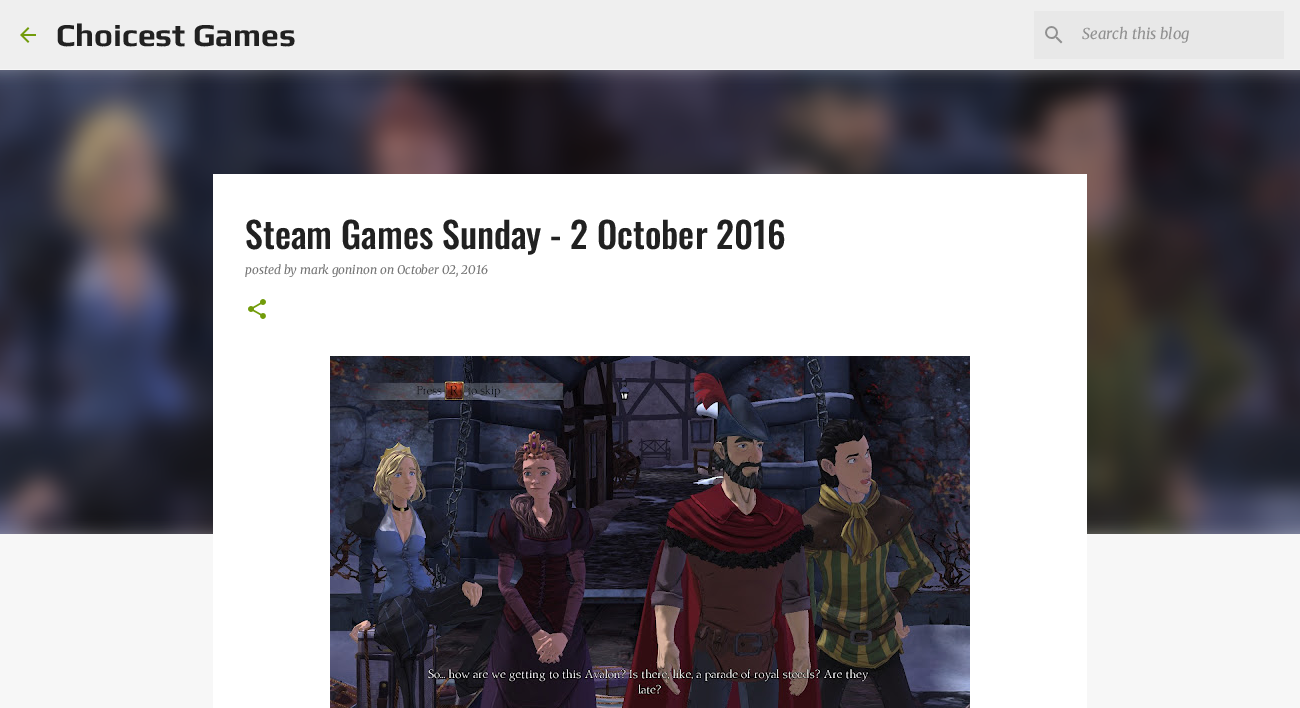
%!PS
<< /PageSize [1300 708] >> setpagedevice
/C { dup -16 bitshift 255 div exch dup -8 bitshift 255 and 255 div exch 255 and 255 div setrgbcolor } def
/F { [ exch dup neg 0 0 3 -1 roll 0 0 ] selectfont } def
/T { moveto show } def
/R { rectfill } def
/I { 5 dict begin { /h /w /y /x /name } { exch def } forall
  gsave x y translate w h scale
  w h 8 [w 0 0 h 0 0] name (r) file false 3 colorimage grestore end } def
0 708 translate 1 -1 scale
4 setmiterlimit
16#F7F7F7 C
0 0 1300 708 R
16#EFEFEF C
0 0 1300 69 R
(1.rgb) 20 27 16 16 I
/Play-Bold 32 F
16#212121 C
(Choicest Games) 56 46 T
16#E8E8E8 C
1034 11 250 48 R
(2.rgb) 1045 26 18 18 I
/Merriweather-Italic 15 F
16#909090 C
(Search this blog) 1082 39 T
(5.rgb) 0 70 1300 464 I
16#FFFFFF C
213 174 874 534 R
/Oswald-Medium 36 F
16#212121 C
(Steam Games Sunday - 2 October 2016) 245 249 T
/Merriweather-Italic 12 F
16#757575 C
(posted by mark goninon on October 02, 2016) 245 274 T
(3.rgb) 248 299 18 20 I
(4.rgb) 330 356 640 352 I
showpage
